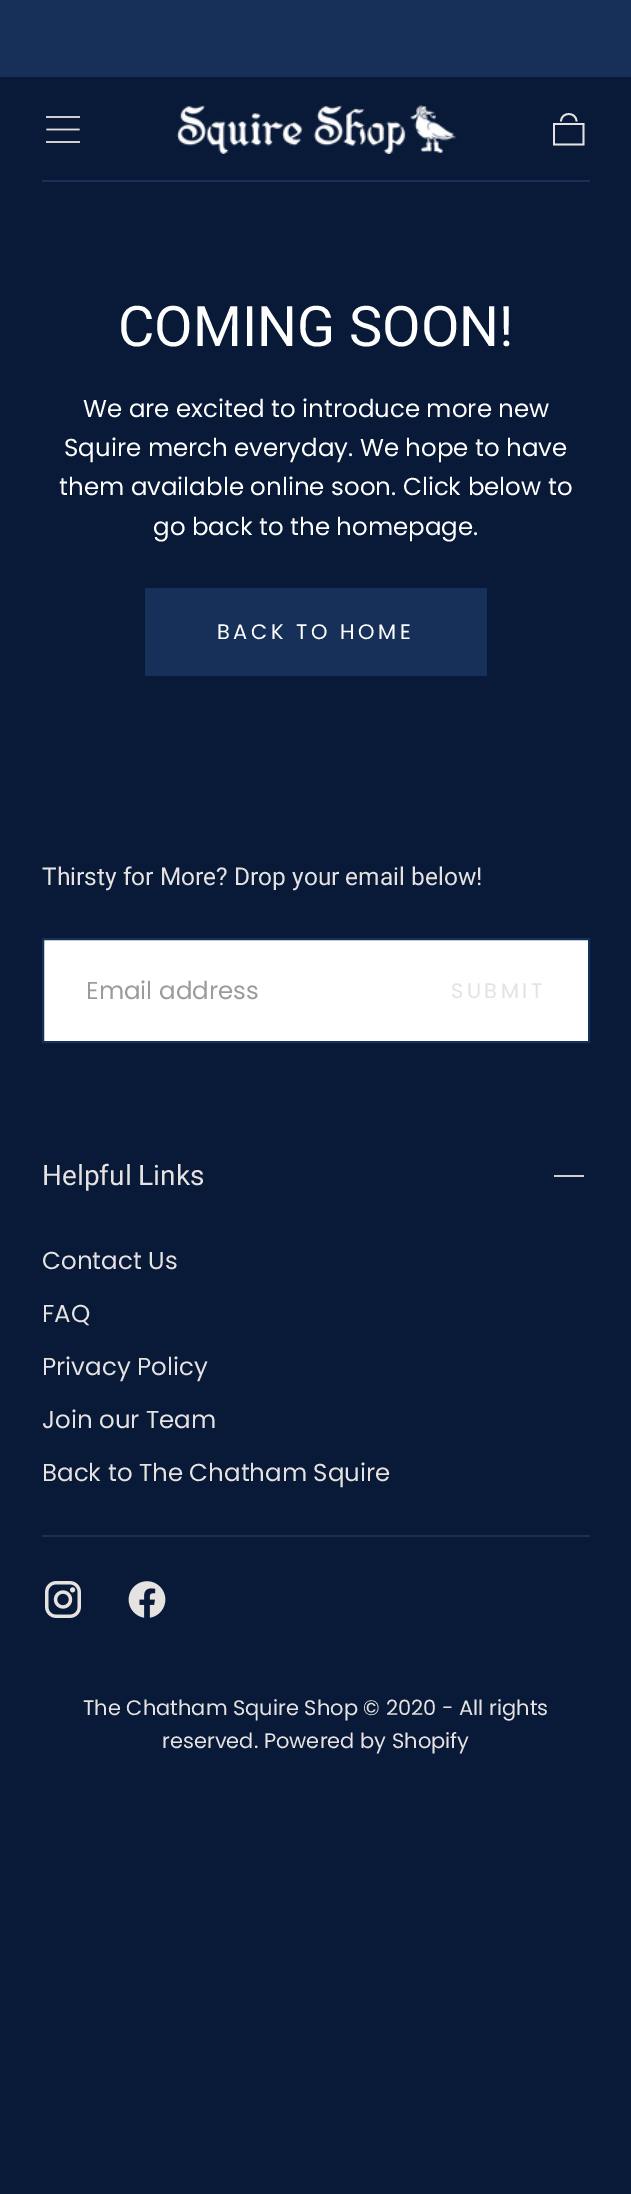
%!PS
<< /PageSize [631 2194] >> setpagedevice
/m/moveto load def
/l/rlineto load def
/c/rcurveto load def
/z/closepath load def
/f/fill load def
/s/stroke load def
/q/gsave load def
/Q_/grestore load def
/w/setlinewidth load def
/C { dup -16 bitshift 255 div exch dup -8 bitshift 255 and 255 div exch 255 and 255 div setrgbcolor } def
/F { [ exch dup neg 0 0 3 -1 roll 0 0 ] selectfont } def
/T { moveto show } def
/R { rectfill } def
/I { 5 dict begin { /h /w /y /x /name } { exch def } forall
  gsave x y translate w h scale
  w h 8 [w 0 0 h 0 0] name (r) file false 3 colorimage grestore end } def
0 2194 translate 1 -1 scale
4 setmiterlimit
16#081A38 C
0 0 631 2194 R
16#173059 C
0 0 631 77 R
(1.rgb) 46 116 34 27 I
(2.rgb) 176 105 281 49 I
16#E6E2E1 C
1.8 w
583.5 144.5 m -29.5 0 l 0 -20.5 l 29.5 0 l z 576.5 121.5 m 0 -10 -15.5 -10 -15.5 0 c s
16#173059 C
42 180 548 2 R
/Roboto-Regular 56 F
16#FFFFFF C
(COMING SOON!) 118 346 T
/Poppins-Regular 24.5 F
(We are excited to introduce more new) 83 417 T
(Squire merch everyday. We hope to have) 64 456 T
(them available online soon. Click below to) 59 495 T
(go back to the homepage.) 153 535 T
16#173059 C
145 588 342 88 R
/Poppins-Regular 21 F
16#FFFFFF C
217 639 m 3.5 0 (BACK TO HOME) ashow
/Roboto-Regular 24.5 F
16#E6E2E1 C
(Thirsty for More? Drop your email below!) 42 885 T
16#FFFFFF C
43 939 m 546 0 l 0 103 l -546 0 l z q f Q_
16#173059 C
2 w
s
/Poppins-Regular 24.5 F
16#9E9A99 C
(Email address) 86 999 T
/Poppins-Regular 21 F
16#E6E2E1 C
451 998 m 3.5 0 (SUBMIT) ashow
16#173059 C
42 1535 548 2 R
/Roboto-Regular 28 F
16#E6E2E1 C
(Helpful Links) 42 1185 T
16#D0CED0 C
554 1175 30 2 R
/Poppins-Regular 24.5 F
16#E6E2E1 C
(Contact Us) 42 1269 T
(FAQ) 42 1322 T
(Privacy Policy) 42 1375 T
(Join our Team) 42 1428 T
(Back to The Chatham Squire) 42 1481 T
(3.rgb) 45 1581 36 37 I
(4.rgb) 128 1581 38 37 I
/Poppins-Regular 21 F
(The Chatham Squire Shop © 2020 - All rights) 83 1715 T
(reserved. Powered by Shopify) 162 1748 T
showpage
